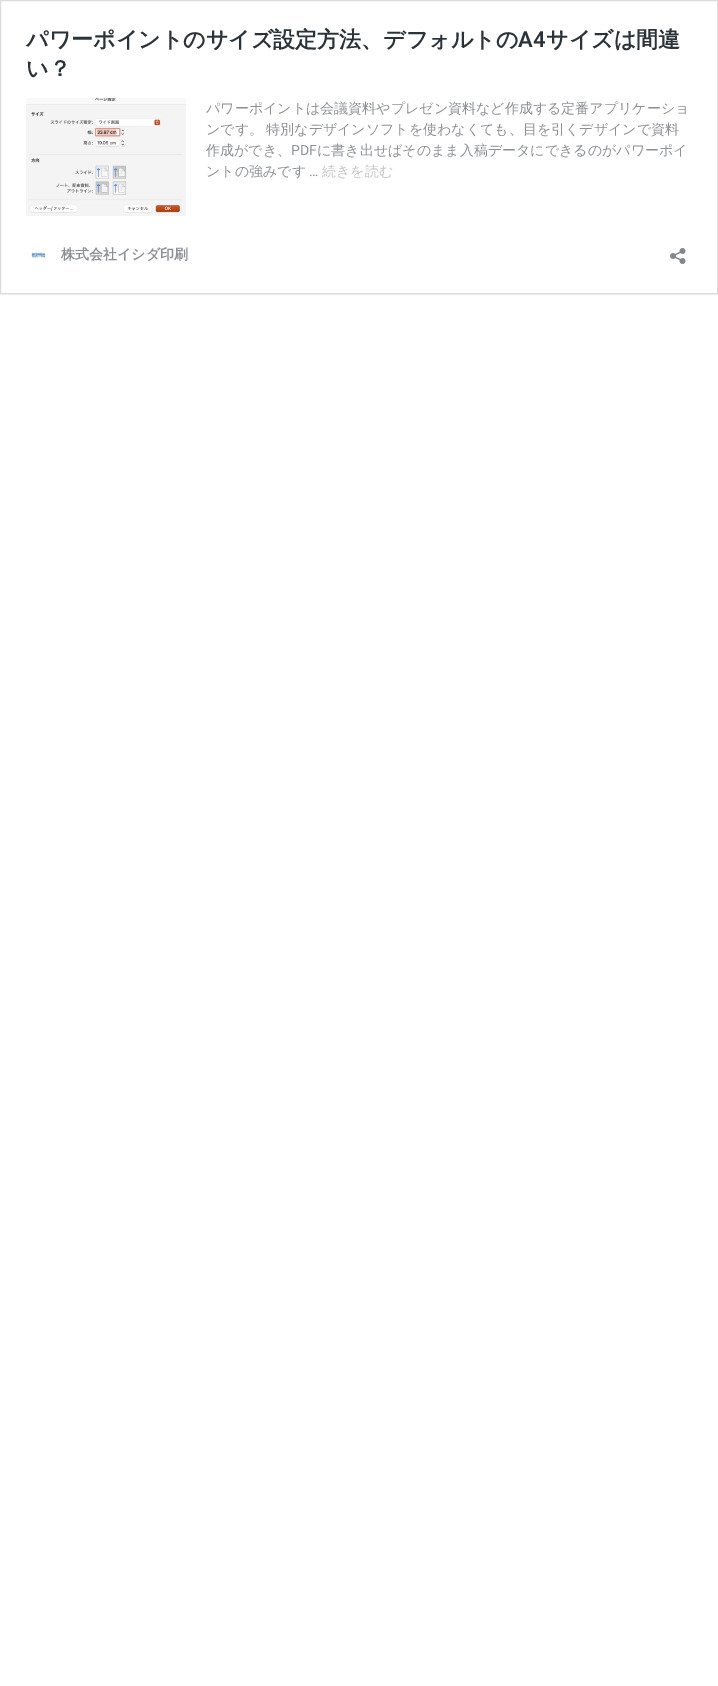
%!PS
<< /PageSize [718 1686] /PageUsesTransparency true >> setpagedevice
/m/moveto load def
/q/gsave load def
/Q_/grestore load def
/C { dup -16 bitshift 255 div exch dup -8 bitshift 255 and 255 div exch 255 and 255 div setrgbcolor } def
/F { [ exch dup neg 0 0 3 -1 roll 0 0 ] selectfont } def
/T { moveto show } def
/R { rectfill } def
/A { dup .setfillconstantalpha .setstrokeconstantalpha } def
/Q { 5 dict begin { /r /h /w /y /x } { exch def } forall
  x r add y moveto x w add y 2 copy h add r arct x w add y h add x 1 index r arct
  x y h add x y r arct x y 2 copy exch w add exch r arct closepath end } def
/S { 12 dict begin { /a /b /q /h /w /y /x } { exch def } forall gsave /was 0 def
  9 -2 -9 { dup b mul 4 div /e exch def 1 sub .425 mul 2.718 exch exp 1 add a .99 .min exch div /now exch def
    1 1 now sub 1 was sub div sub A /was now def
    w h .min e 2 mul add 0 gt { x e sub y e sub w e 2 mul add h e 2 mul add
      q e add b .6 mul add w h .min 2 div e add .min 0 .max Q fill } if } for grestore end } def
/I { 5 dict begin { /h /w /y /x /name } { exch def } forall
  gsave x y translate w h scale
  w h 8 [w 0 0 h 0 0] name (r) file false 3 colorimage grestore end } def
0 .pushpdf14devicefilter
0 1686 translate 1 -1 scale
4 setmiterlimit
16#FFFFFF C
0 0 718 1686 R
q
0 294 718 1 rectclip
16#000000 C
0 1 718 294 0 .5 .05 S
Q_
16#DCDCDE C
.5 .5 717 293 rectstroke
/WenQuanYiZenHei-Bold 22 F
16#2C3338 C
(パワーポイントのサイズ設定方法、デフォルトの) 26 47 T
/Roboto-SemiBold 22 F
(A4) 518 47 T
/WenQuanYiZenHei-Bold 22 F
(サイズは間違) 546 47 T
(い？) 26 76 T
(1.rgb) 26 98 160 118 I
/WenQuanYiZenHei-Medium 14 F
16#8C8F94 C
(パワーポイントは会議資料やプレゼン資料など作成する定番アプリケーショ) 206 113 T
206 134 m -1 0 32 (ンです。 特別なデザインソフトを使わなくても、目を引くデザインで資料) widthshow
(作成ができ、) 206 155 T
/Roboto-Regular 14 F
(PDF) 291 155 T
/WenQuanYiZenHei-Medium 14 F
(に書き出せばそのまま入稿データにできるのがパワーポイ) 317 155 T
(ントの強みです) 206 176 T
/Roboto-Regular 14 F
(…) 309 176 T
/WenQuanYiZenHei-Medium 14 F
16#C3C4C7 C
(続きを読む) 322 176 T
(2.rgb) 31 252 15 6 I
/WenQuanYiZenHei-Bold 14 F
16#8C8F94 C
(株式会社イシダ印刷) 61 259 T
(3.rgb) 670 248 16 16 I
.poppdf14devicefilter showpage
